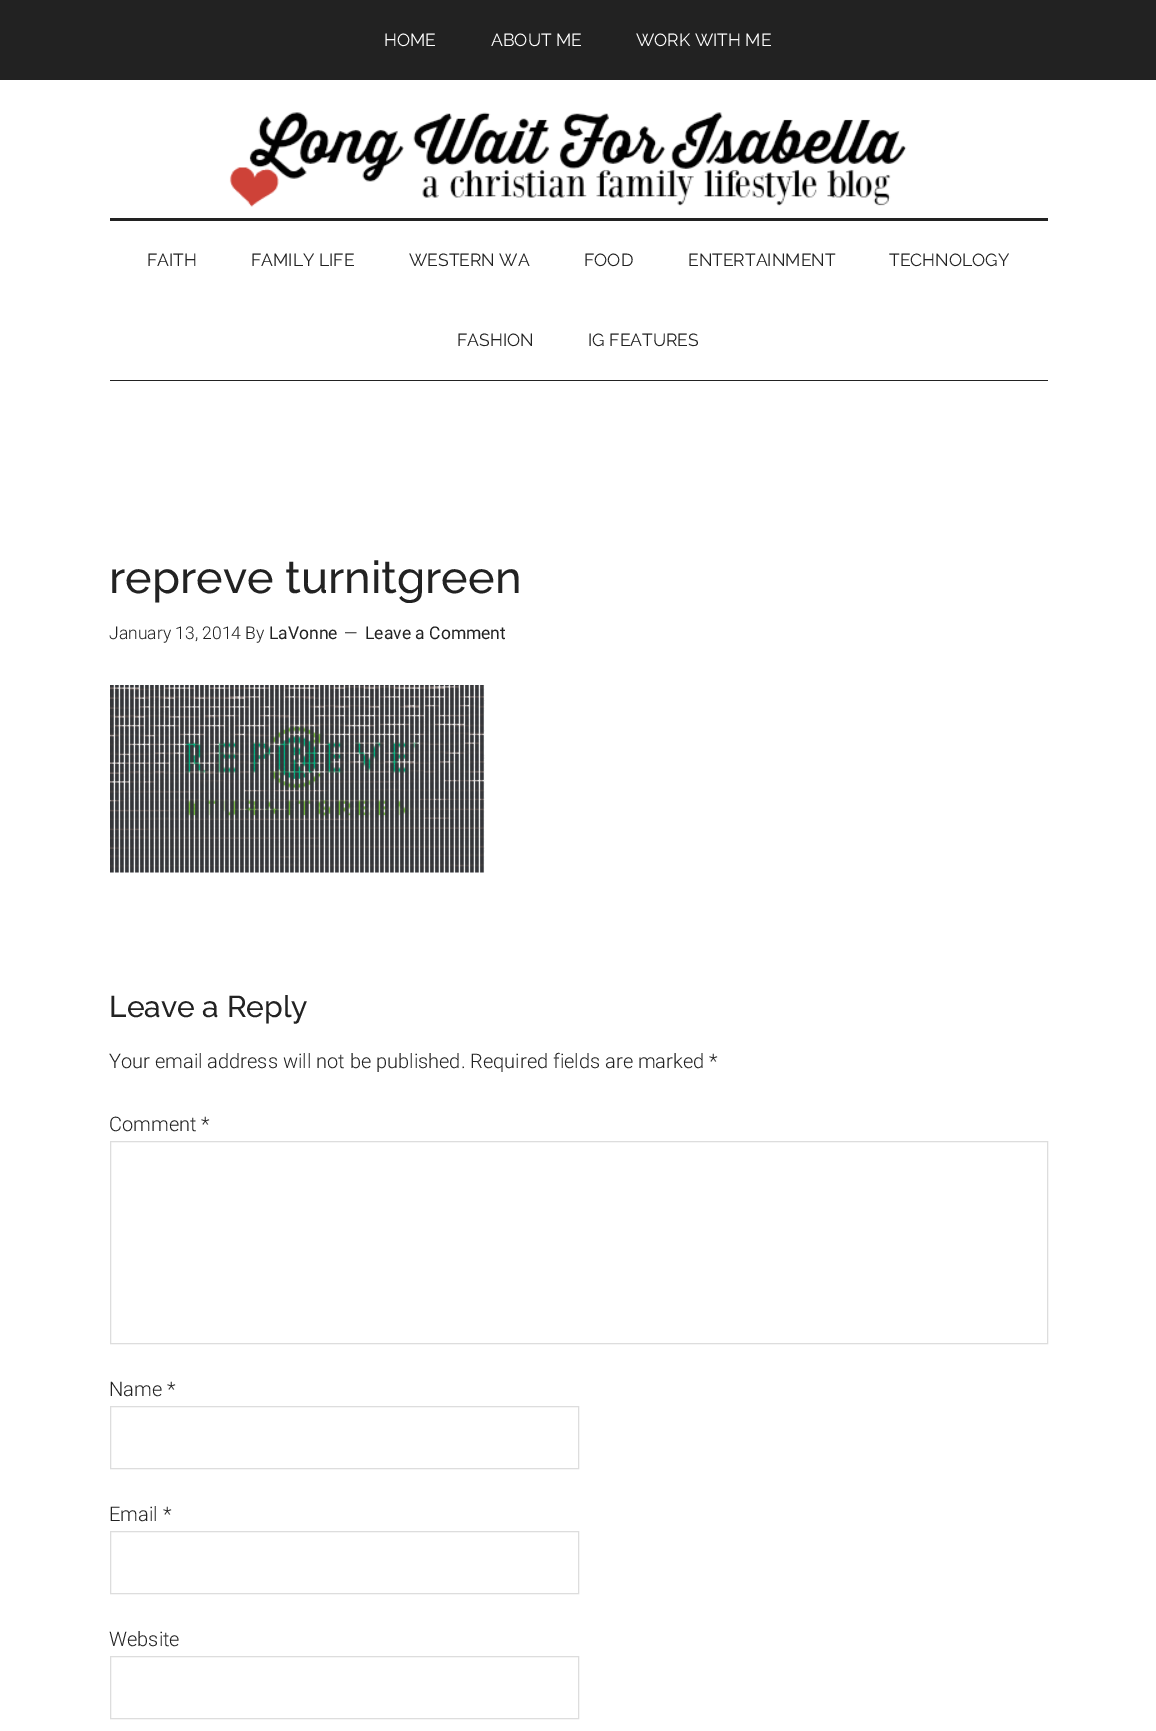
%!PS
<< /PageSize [1156 1731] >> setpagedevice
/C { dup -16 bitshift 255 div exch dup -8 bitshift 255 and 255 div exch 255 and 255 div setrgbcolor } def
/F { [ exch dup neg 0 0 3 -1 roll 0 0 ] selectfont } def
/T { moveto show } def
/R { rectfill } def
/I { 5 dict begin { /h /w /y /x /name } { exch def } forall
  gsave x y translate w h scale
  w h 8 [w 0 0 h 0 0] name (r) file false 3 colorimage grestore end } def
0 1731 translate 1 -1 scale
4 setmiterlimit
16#FFFFFF C
0 0 1156 1731 R
16#222222 C
0 0 1156 80 R
/Raleway-Regular 17.5 F
16#FFFFFF C
(HOME) 384 46 T
(ABOUT ME) 491 46 T
(WORK WITH ME) 636 46 T
16#222222 C
110 218 938 3 R
(1.rgb) 229 112 678 95 I
110 380 938 1 R
(FAITH) 147 266 T
(FAMILY LIFE) 251 266 T
(WESTERN WA) 409 266 T
(FOOD) 584 266 T
(ENTERTAINMENT) 688 266 T
(TECHNOLOGY) 889 266 T
(FASHION) 457 346 T
(IG FEATURES) 588 346 T
/Raleway-Medium 45 F
(repreve turnitgreen) 109 593 T
/Roboto-Light 17.5 F
(January 13, 2014 By) 109 639 T
/Roboto-Regular 17.5 F
(LaVonne) 269 639 T
/Roboto-Light 17.5 F
(—) 344 639 T
/Roboto-Regular 17.5 F
(Leave a Comment) 365 639 T
(2.rgb) 110 685 375 188 I
/Raleway-Medium 30 F
(Leave a Reply) 109 1017 T
/Roboto-Light 20 F
(Your email address will not be published. Required fields are marked *) 109 1068 T
(Comment *) 109 1131 T
16#DDDDDD C
110.5 1141.5 937 202 rectstroke
16#222222 C
(Name *) 109 1396 T
16#DDDDDD C
110.5 1406.5 468 62 rectstroke
16#222222 C
(Email *) 109 1521 T
16#DDDDDD C
110.5 1531.5 468 62 rectstroke
16#222222 C
(Website) 109 1646 T
16#DDDDDD C
110.5 1656.5 468 62 rectstroke
showpage
